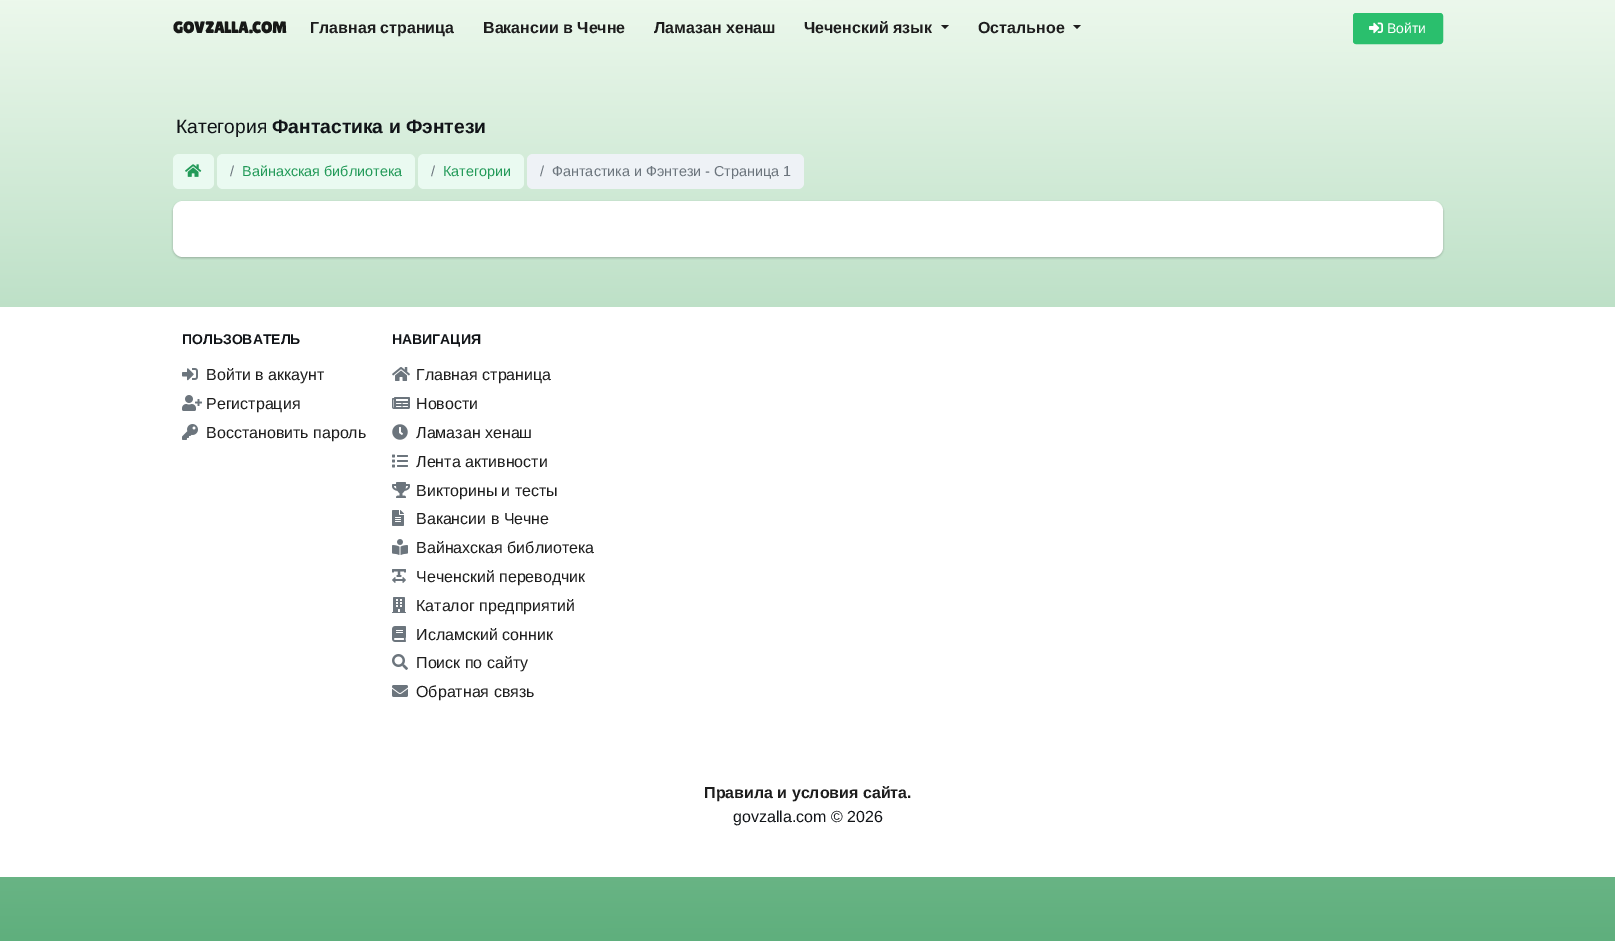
%!PS
<< /PageSize [1615 941] /PageUsesTransparency true >> setpagedevice
/m/moveto load def
/l/rlineto load def
/z/closepath load def
/f/fill load def
/s/stroke load def
/q/gsave load def
/Q_/grestore load def
/C { dup -16 bitshift 255 div exch dup -8 bitshift 255 and 255 div exch 255 and 255 div setrgbcolor } def
/F { [ exch dup neg 0 0 3 -1 roll 0 0 ] selectfont } def
/T { moveto show } def
/R { rectfill } def
/A { dup .setfillconstantalpha .setstrokeconstantalpha } def
/Q { 5 dict begin { /r /h /w /y /x } { exch def } forall
  x r add y moveto x w add y 2 copy h add r arct x w add y h add x 1 index r arct
  x y h add x y r arct x y 2 copy exch w add exch r arct closepath end } def
/S { 12 dict begin { /a /b /q /h /w /y /x } { exch def } forall gsave /was 0 def
  9 -2 -9 { dup b mul 4 div /e exch def 1 sub .425 mul 2.718 exch exp 1 add a .99 .min exch div /now exch def
    1 1 now sub 1 was sub div sub A /was now def
    w h .min e 2 mul add 0 gt { x e sub y e sub w e 2 mul add h e 2 mul add
      q e add b .6 mul add w h .min 2 div e add .min 0 .max Q fill } if } for grestore end } def
/I { 5 dict begin { /h /w /y /x /name } { exch def } forall
  gsave x y translate w h scale
  w h 8 [w 0 0 h 0 0] name (r) file false 3 colorimage grestore end } def
0 .pushpdf14devicefilter
0 941 translate 1 -1 scale
4 setmiterlimit
16#FFFFFF C
0 0 1615 941 R
q 0 0 m 1615 0 l 0 941 l -1615 0 l z clip newpath
<< /ShadingType 2 /ColorSpace /DeviceRGB /Coords [807 0 808 941] /Extend [true true] /Function << /FunctionType 2 /Domain [0 1] /C0 [.925 .973 .925] /C1 [.373 .686 .49] /N 1 >> >> shfill Q_
/LilitaOne-Bold 16 F
16#171917 C
(GOVZALLA.COM) 173 33 T
/LiberationSans-Bold 16 F
16#1D1D1D C
(Главная страница) 310 33 T
(Вакансии в Чечне) 483 33 T
(Ламазан хенаш) 654 33 T
(Чеченский язык) 804 33 T
941 25 m 8 0 l -4 4 l z f
(Остальное) 978 33 T
1073 25 m 8 0 l -4 4 l z f
16#2ABF6D C
1353.5 13.5 89 30 2.5 Q q f Q_
s
(1.rgb) 1369 22 14 12 I
/LiberationSans-Regular 14 F
16#FFFFFF C
(Войти) 1387 33 T
/LiberationSans-Regular 19.25 F
16#111418 C
(Категория) 176 133 T
/LiberationSans-Bold 19.25 F
(Фантастика и Фэнтези) 272 133 T
16#EAFAF1 C
173 154 41 35 6 Q f
(2.rgb) 185 164 17 13 I
217 154 198 35 6 Q f
/LiberationSans-Regular 14.4 F
16#6C757D C
(/) 230 176 T
16#239A59 C
(Вайнахская библиотека) 242 176 T
16#EAFAF1 C
418 154 106 35 6 Q f
16#6C757D C
(/) 431 176 T
16#239A59 C
(Категории) 443 176 T
16#EEF2F6 C
527 154 277 35 6 Q f
16#6C757D C
(/) 540 176 T
(Фантастика и Фэнтези - Страница 1) 552 176 T
16#000000 C
173 202 1270 56 10 1 .13 S
173 202 1270 56 10 1 .12 S
16#FFFFFF C
173 201 1270 56 10 Q f
0 307 1615 570 R
/LiberationSans-Bold 14 F
16#111418 C
(ПОЛЬЗОВАТЕЛЬ) 182 344 T
(3.rgb) 182 368 16 13 I
/LiberationSans-Regular 16 F
16#1D1D1D C
(Войти в аккаунт) 206 380 T
(4.rgb) 182 395 20 16 I
(Регистрация) 206 409 T
(5.rgb) 182 424 16 16 I
(Восстановить пароль) 206 438 T
/LiberationSans-Bold 14 F
16#111418 C
(НАВИГАЦИЯ) 392 344 T
(6.rgb) 392 367 18 14 I
/LiberationSans-Regular 16 F
16#1D1D1D C
(Главная страница) 416 380 T
(7.rgb) 392 397 18 12 I
(Новости) 416 409 T
(8.rgb) 392 424 16 16 I
(Ламазан хенаш) 416 438 T
(9.rgb) 392 454 16 14 I
(Лента активности) 416 467 T
(10.rgb) 392 482 18 16 I
(Викторины и тесты) 416 496 T
(11.rgb) 392 510 12 16 I
(Вакансии в Чечне) 416 524 T
(12.rgb) 392 539 16 16 I
(Вайнахская библиотека) 416 553 T
(13.rgb) 392 569 14 14 I
(Чеченский переводчик) 416 582 T
(14.rgb) 392 597 14 16 I
(Каталог предприятий) 416 611 T
(15.rgb) 392 626 14 16 I
(Исламский сонник) 416 640 T
(16.rgb) 392 654 16 16 I
(Поиск по сайту) 416 668 T
(17.rgb) 392 685 16 12 I
(Обратная связь) 416 697 T
/LiberationSans-Bold 16 F
(Правила и условия сайта.) 704 798 T
/LiberationSans-Regular 16 F
16#111418 C
(govzalla.com © 2026) 733 822 T
.poppdf14devicefilter showpage
